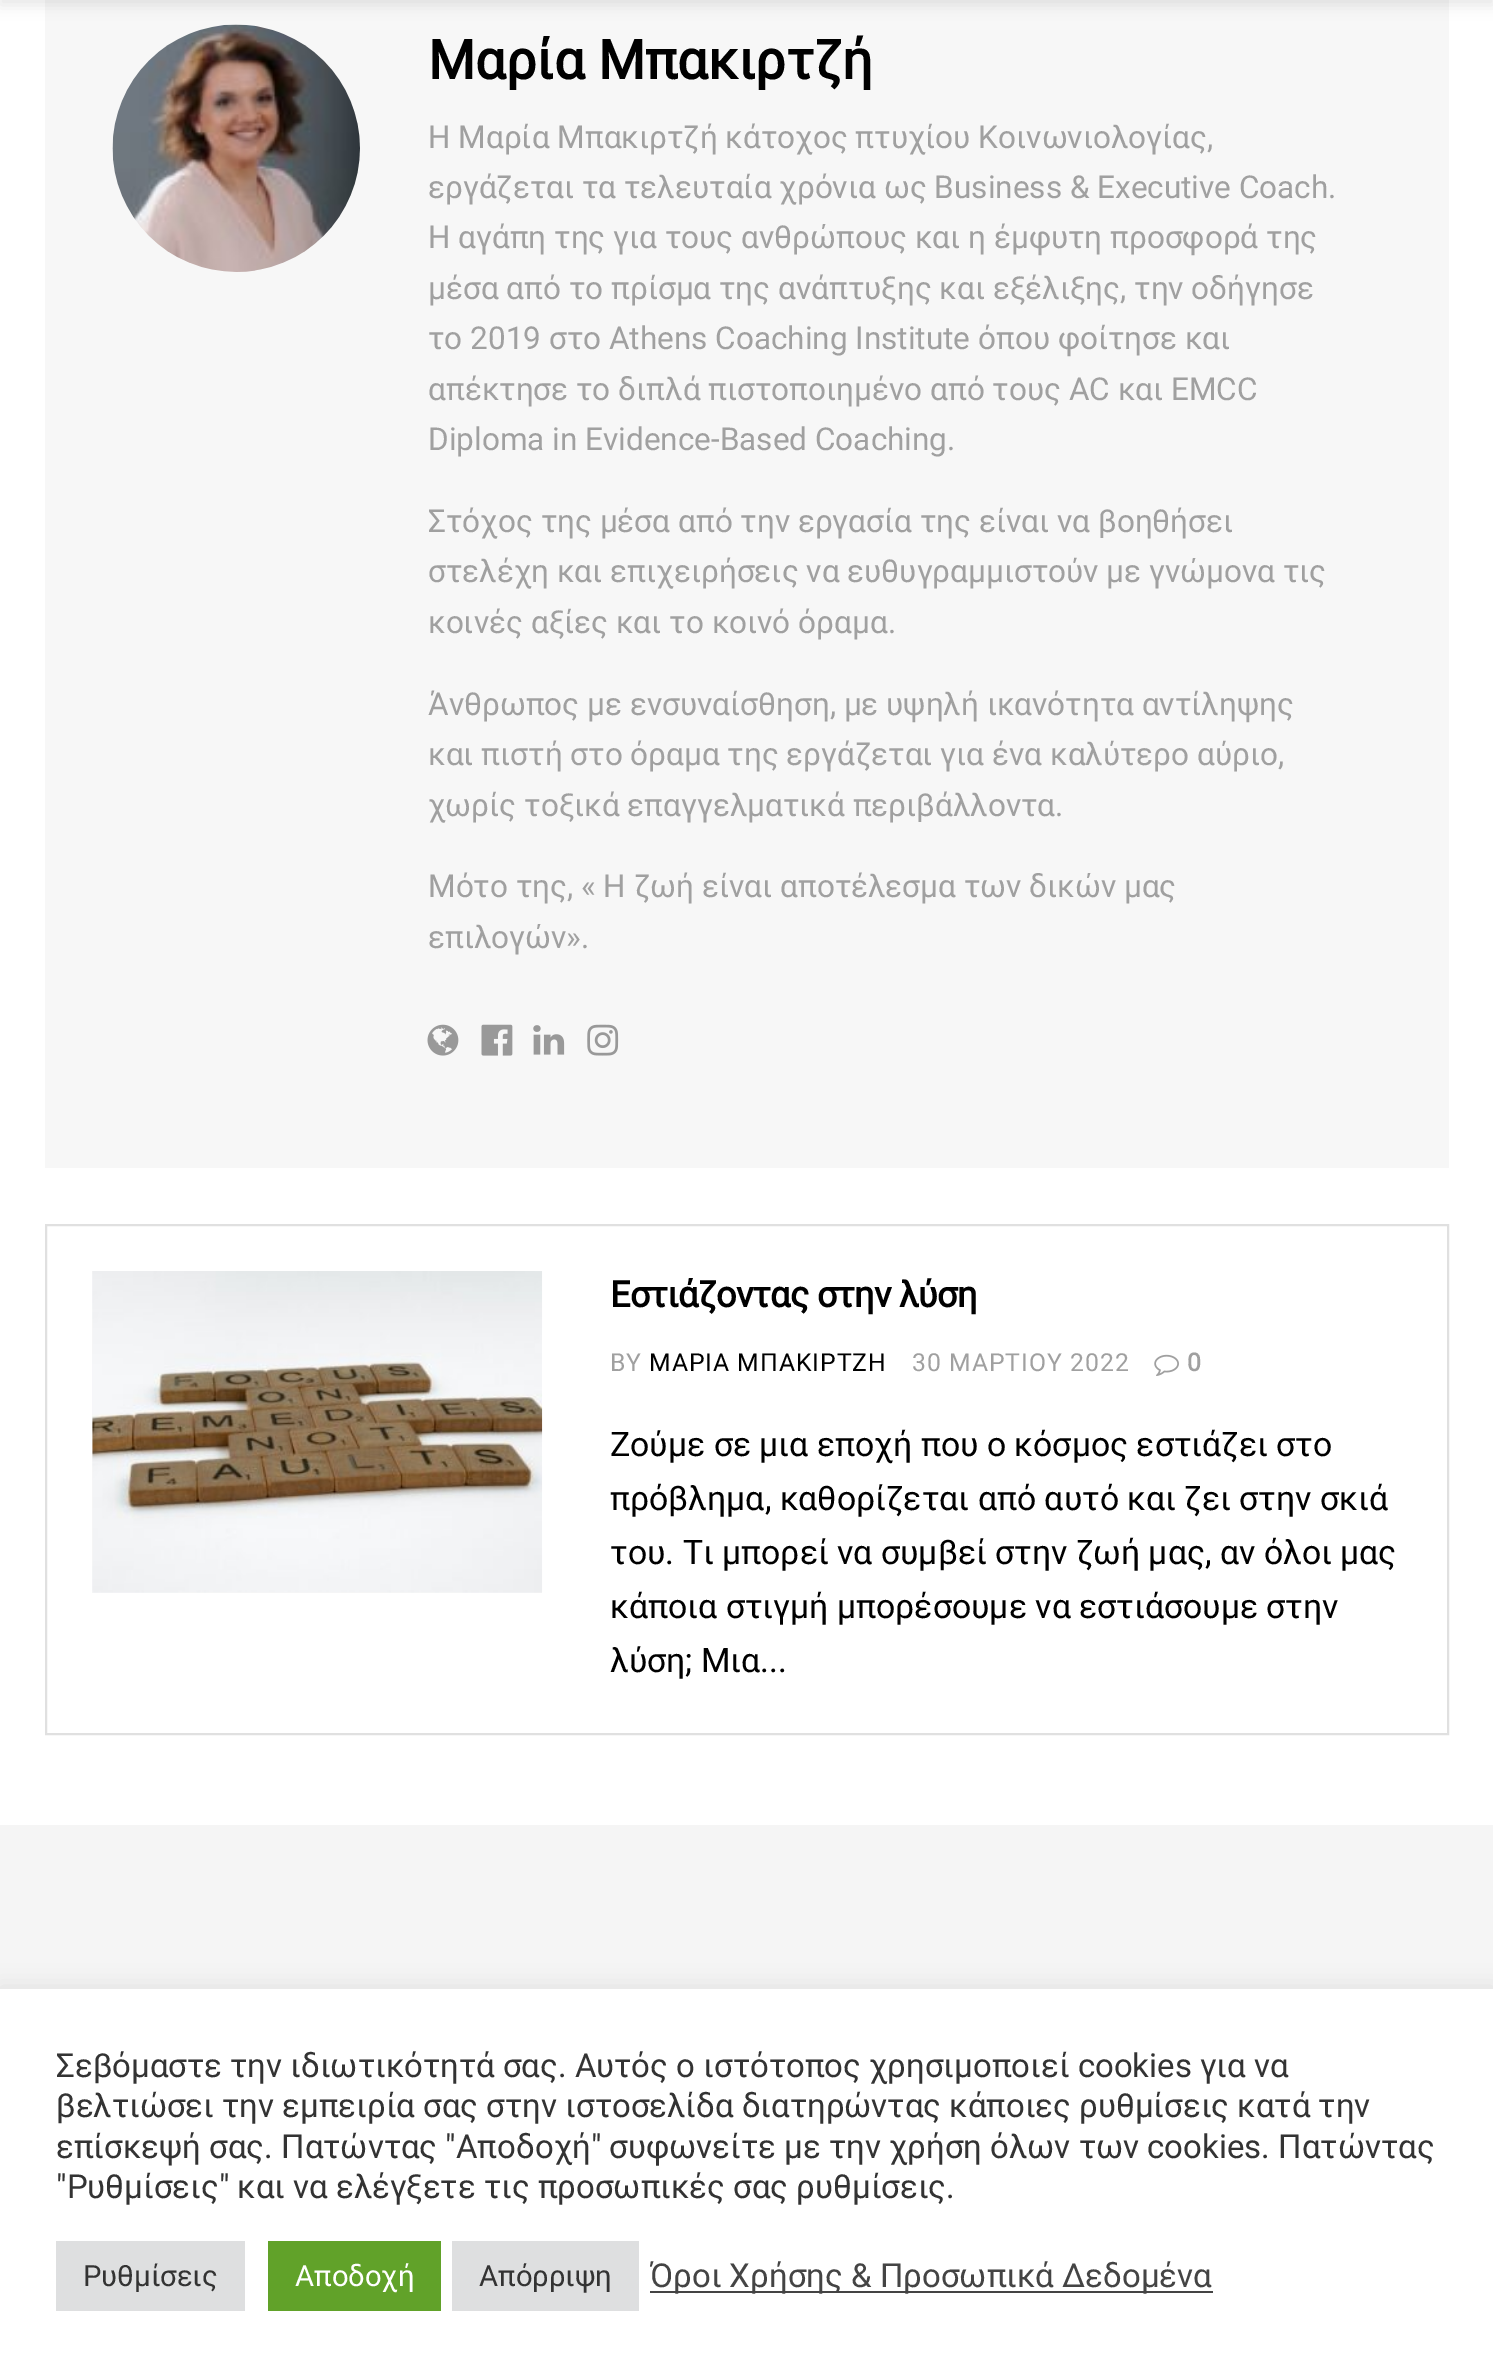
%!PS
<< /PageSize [1493 2378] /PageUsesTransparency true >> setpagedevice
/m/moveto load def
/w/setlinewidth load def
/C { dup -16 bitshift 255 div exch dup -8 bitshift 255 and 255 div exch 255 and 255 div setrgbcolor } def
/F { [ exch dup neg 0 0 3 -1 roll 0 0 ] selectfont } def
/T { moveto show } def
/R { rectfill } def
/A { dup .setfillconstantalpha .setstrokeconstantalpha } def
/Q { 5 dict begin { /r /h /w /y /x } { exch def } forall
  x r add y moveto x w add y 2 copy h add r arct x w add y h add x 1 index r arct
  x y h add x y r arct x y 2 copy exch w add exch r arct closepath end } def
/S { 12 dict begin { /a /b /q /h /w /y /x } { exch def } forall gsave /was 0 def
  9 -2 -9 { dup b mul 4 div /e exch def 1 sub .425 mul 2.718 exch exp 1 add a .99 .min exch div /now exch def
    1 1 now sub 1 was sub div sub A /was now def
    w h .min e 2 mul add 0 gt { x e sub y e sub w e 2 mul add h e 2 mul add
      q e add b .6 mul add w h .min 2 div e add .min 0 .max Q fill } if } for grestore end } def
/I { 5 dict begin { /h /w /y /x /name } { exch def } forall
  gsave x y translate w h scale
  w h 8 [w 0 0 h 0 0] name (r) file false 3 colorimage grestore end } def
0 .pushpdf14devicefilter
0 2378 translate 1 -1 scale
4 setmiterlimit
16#FFFFFF C
0 0 1493 2378 R
16#F7F7F7 C
45 0 1404 1168 R
(1.rgb) 112 24 248 248 I
16#000000 C
0 -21 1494 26 0 7 .1 S
/Roboto-Bold 54 F
(Μαρία Μπακιρτζή) 428 79 T
/Roboto-Regular 31.5 F
16#A0A0A0 C
(Η Μαρία Μπακιρτζή κάτοχος πτυχίου Κοινωνιολογίας,) 428 148 T
(εργάζεται τα τελευταία χρόνια ως Business & Executive Coach.) 428 198 T
(Η αγάπη της για τους ανθρώπους και η έμφυτη προσφορά της) 428 248 T
(μέσα από το πρίσμα της ανάπτυξης και εξέλιξης, την οδήγησε) 428 299 T
(το 2019 στο Athens Coaching Institute όπου φοίτησε και) 428 349 T
(απέκτησε το διπλά πιστοποιημένο από τους AC και EMCC) 428 400 T
(Diploma in Evidence-Based Coaching.) 428 450 T
(Στόχος της μέσα από την εργασία της είναι να βοηθήσει) 428 532 T
(στελέχη και επιχειρήσεις να ευθυγραμμιστούν με γνώμονα τις) 428 582 T
(κοινές αξίες και το κοινό όραμα.) 428 633 T
(Άνθρωπος με ενσυναίσθηση, με υψηλή ικανότητα αντίληψης) 428 715 T
(και πιστή στο όραμα της εργάζεται για ένα καλύτερο αύριο,) 428 765 T
(χωρίς τοξικά επαγγελματικά περιβάλλοντα.) 428 816 T
(Μότο της, « Η ζωή είναι αποτέλεσμα των δικών μας) 428 897 T
(επιλογών».) 428 948 T
(2.rgb) 427 1024 32 32 I
(3.rgb) 481 1024 32 32 I
(4.rgb) 533 1025 32 30 I
(5.rgb) 587 1024 32 32 I
16#E0E0E0 C
2 w
46 1225 1402 509 rectstroke
16#F7F7F7 C
92 1271 450 322 R
(6.rgb) 92 1271 451 322 I
/Roboto-Bold 36 F
16#000000 C
610 1307 m -.75 0 (Εστιάζοντας στην λύση) ashow
/Roboto-Regular 24.75 F
16#A0A0A0 C
610 1371 m 1 0 (BY) ashow
16#000000 C
649 1371 m 1 0 (ΜΑΡΙΑ ΜΠΑΚΙΡΤΖΗ) ashow
16#A0A0A0 C
912 1371 m 1 0 (30 ΜΑΡΤΙΟΥ 2022) ashow
(7.rgb) 1154 1354 25 22 I
/Roboto-Bold 24.75 F
1187 1371 m 1 0 (0) ashow
/Roboto-Regular 33.75 F
16#000000 C
(Ζούμε σε μια εποχή που ο κόσμος εστιάζει στο) 610 1456 T
(πρόβλημα, καθορίζεται από αυτό και ζει στην σκιά) 610 1510 T
(του. Τι μπορεί να συμβεί στην ζωή μας, αν όλοι μας) 610 1564 T
(κάποια στιγμή μπορέσουμε να εστιάσουμε στην) 610 1618 T
(λύση; Μια...) 610 1672 T
16#F5F5F5 C
0 1825 1493 164 R
16#ACABAB C
0 1987 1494 389 0 11 .3 S
16#FFFFFF C
0 1989 1493 389 R
/Roboto-Regular 33 F
16#333333 C
(Σεβόμαστε την ιδιωτικότητά σας. Αυτός ο ιστότοπος χρησιμοποιεί cookies για να) 56 2077 T
(βελτιώσει την εμπειρία σας στην ιστοσελίδα διατηρώντας κάποιες ρυθμίσεις κατά την) 56 2117 T
(επίσκεψή σας. Πατώντας "Αποδοχή" συφωνείτε με την χρήση όλων των cookies. Πατώντας) 56 2158 T
("Ρυθμίσεις" και να ελέγξετε τις προσωπικές σας ρυθμίσεις.) 56 2198 T
16#DEDFE0 C
56 2241 189 70 R
/Roboto-Regular 29.25 F
16#333333 C
(Ρυθμίσεις) 83 2286 T
16#61A229 C
268 2241 173 70 R
16#FFFFFF C
(Αποδοχή) 295 2286 T
16#DEDFE0 C
452 2241 187 70 R
16#333333 C
(Απόρριψη) 479 2286 T
16#444444 C
650 2291 563 2 R
/Roboto-Regular 33 F
(Όροι Χρήσης & Προσωπικά Δεδομένα) 650 2287 T
.poppdf14devicefilter showpage
